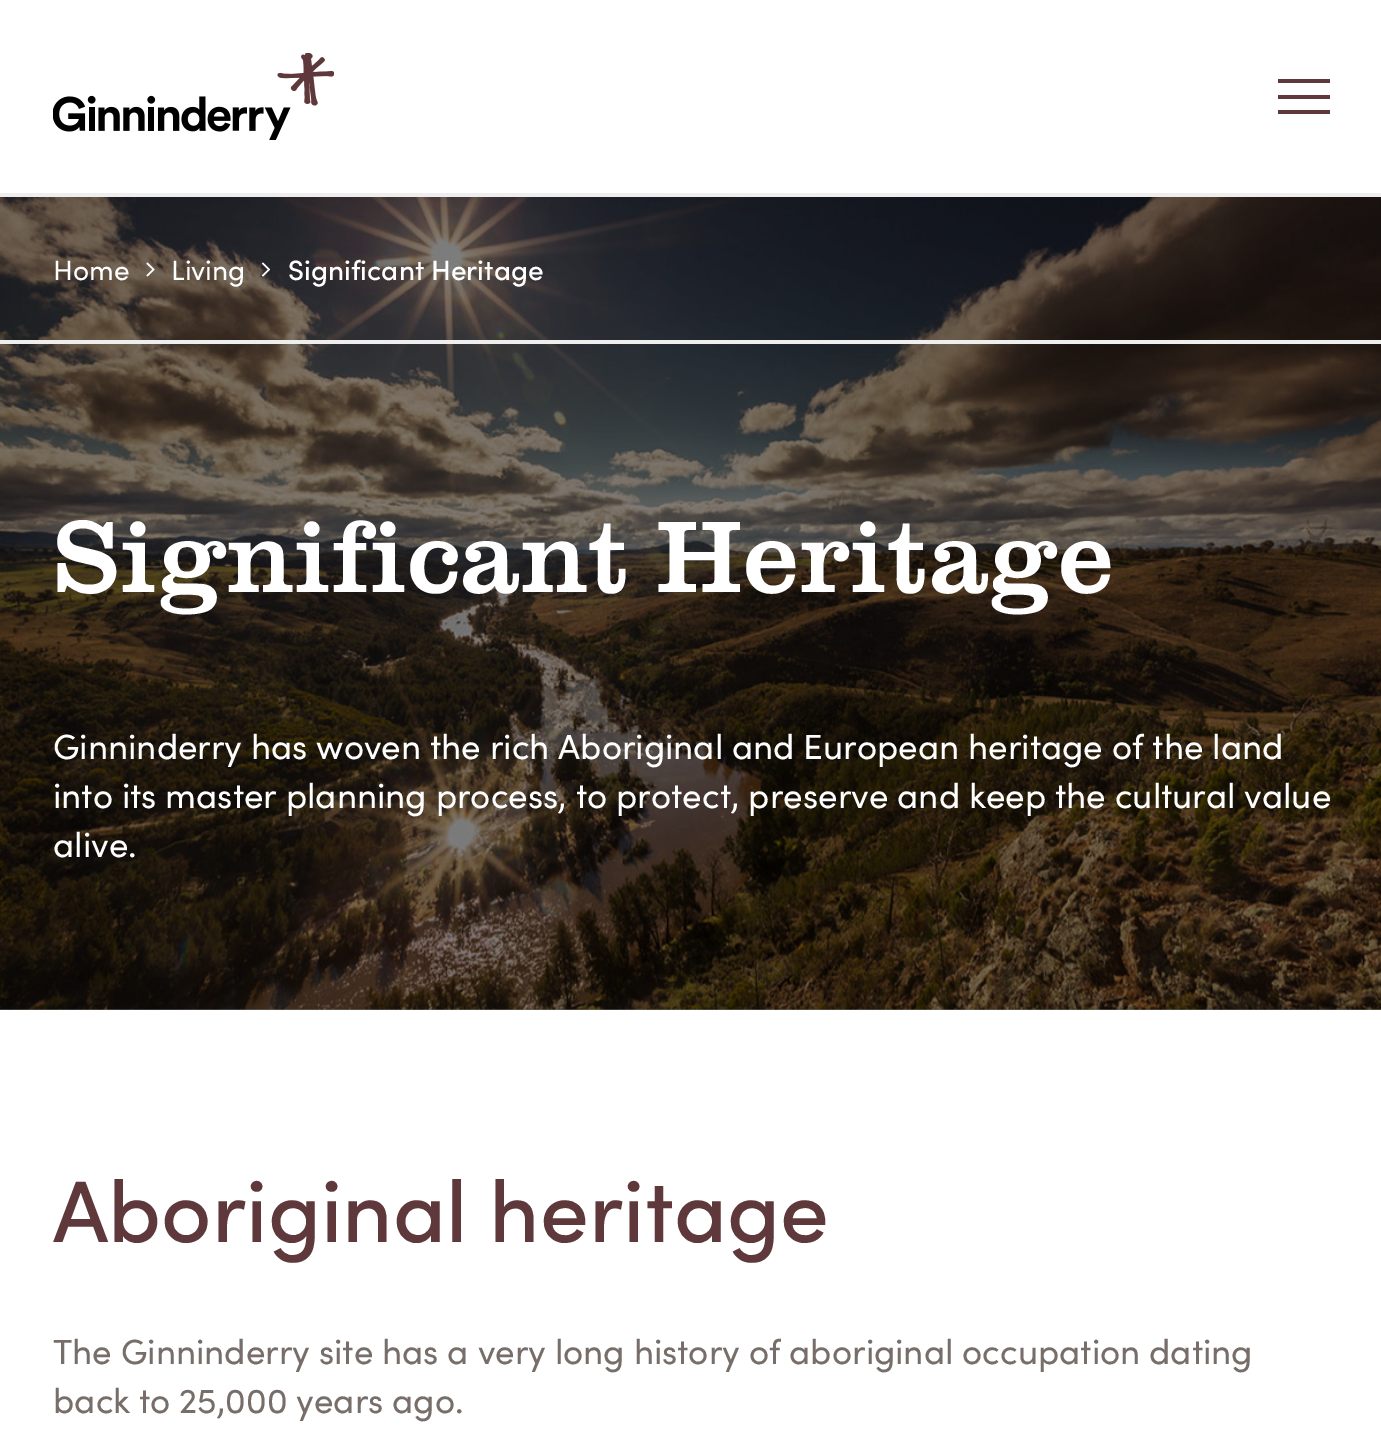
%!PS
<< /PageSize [1381 1436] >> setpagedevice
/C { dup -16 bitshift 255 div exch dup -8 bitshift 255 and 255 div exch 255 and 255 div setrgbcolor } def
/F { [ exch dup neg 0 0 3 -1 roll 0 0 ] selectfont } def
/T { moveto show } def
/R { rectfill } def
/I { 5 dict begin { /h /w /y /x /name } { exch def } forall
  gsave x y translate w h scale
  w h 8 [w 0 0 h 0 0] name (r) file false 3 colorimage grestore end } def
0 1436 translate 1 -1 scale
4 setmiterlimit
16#FFFFFF C
0 0 1381 1436 R
16#EEEEEE C
0 193 1381 4 R
(1.rgb) 53 53 281 87 I
16#5E383B C
1278 79 52 4 R
1278 95 52 4 R
1278 110 52 4 R
16#808080 C
0 1009 1381 1 R
(2.rgb) 0 197 1381 813 I
16#EEEEEE C
0 340 1381 4 R
/Sofia-Regular 28 F
16#FFFFFF C
(Home) 53 280 T
(3.rgb) 146 262 9 15 I
(Living) 171 280 T
(4.rgb) 261 262 9 15 I
/Sofia-Medium 28 F
(Significant Heritage) 288 280 T
/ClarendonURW-Regular 105 F
(Significant Heritage) 53 592 T
/Sofia-Regular 35 F
(Ginninderry has woven the rich Aboriginal and European heritage of the land) 53 759 T
(into its master planning process, to protect, preserve and keep the cultural value) 53 808 T
(alive.) 53 857 T
/Sofia-Medium 87.5 F
16#5E383B C
(Aboriginal heritage) 53 1242 T
/Sofia-Regular 35 F
16#776D69 C
(The Ginninderry site has a very long history of aboriginal occupation dating) 53 1364 T
(back to 25,000 years ago.) 53 1413 T
showpage
